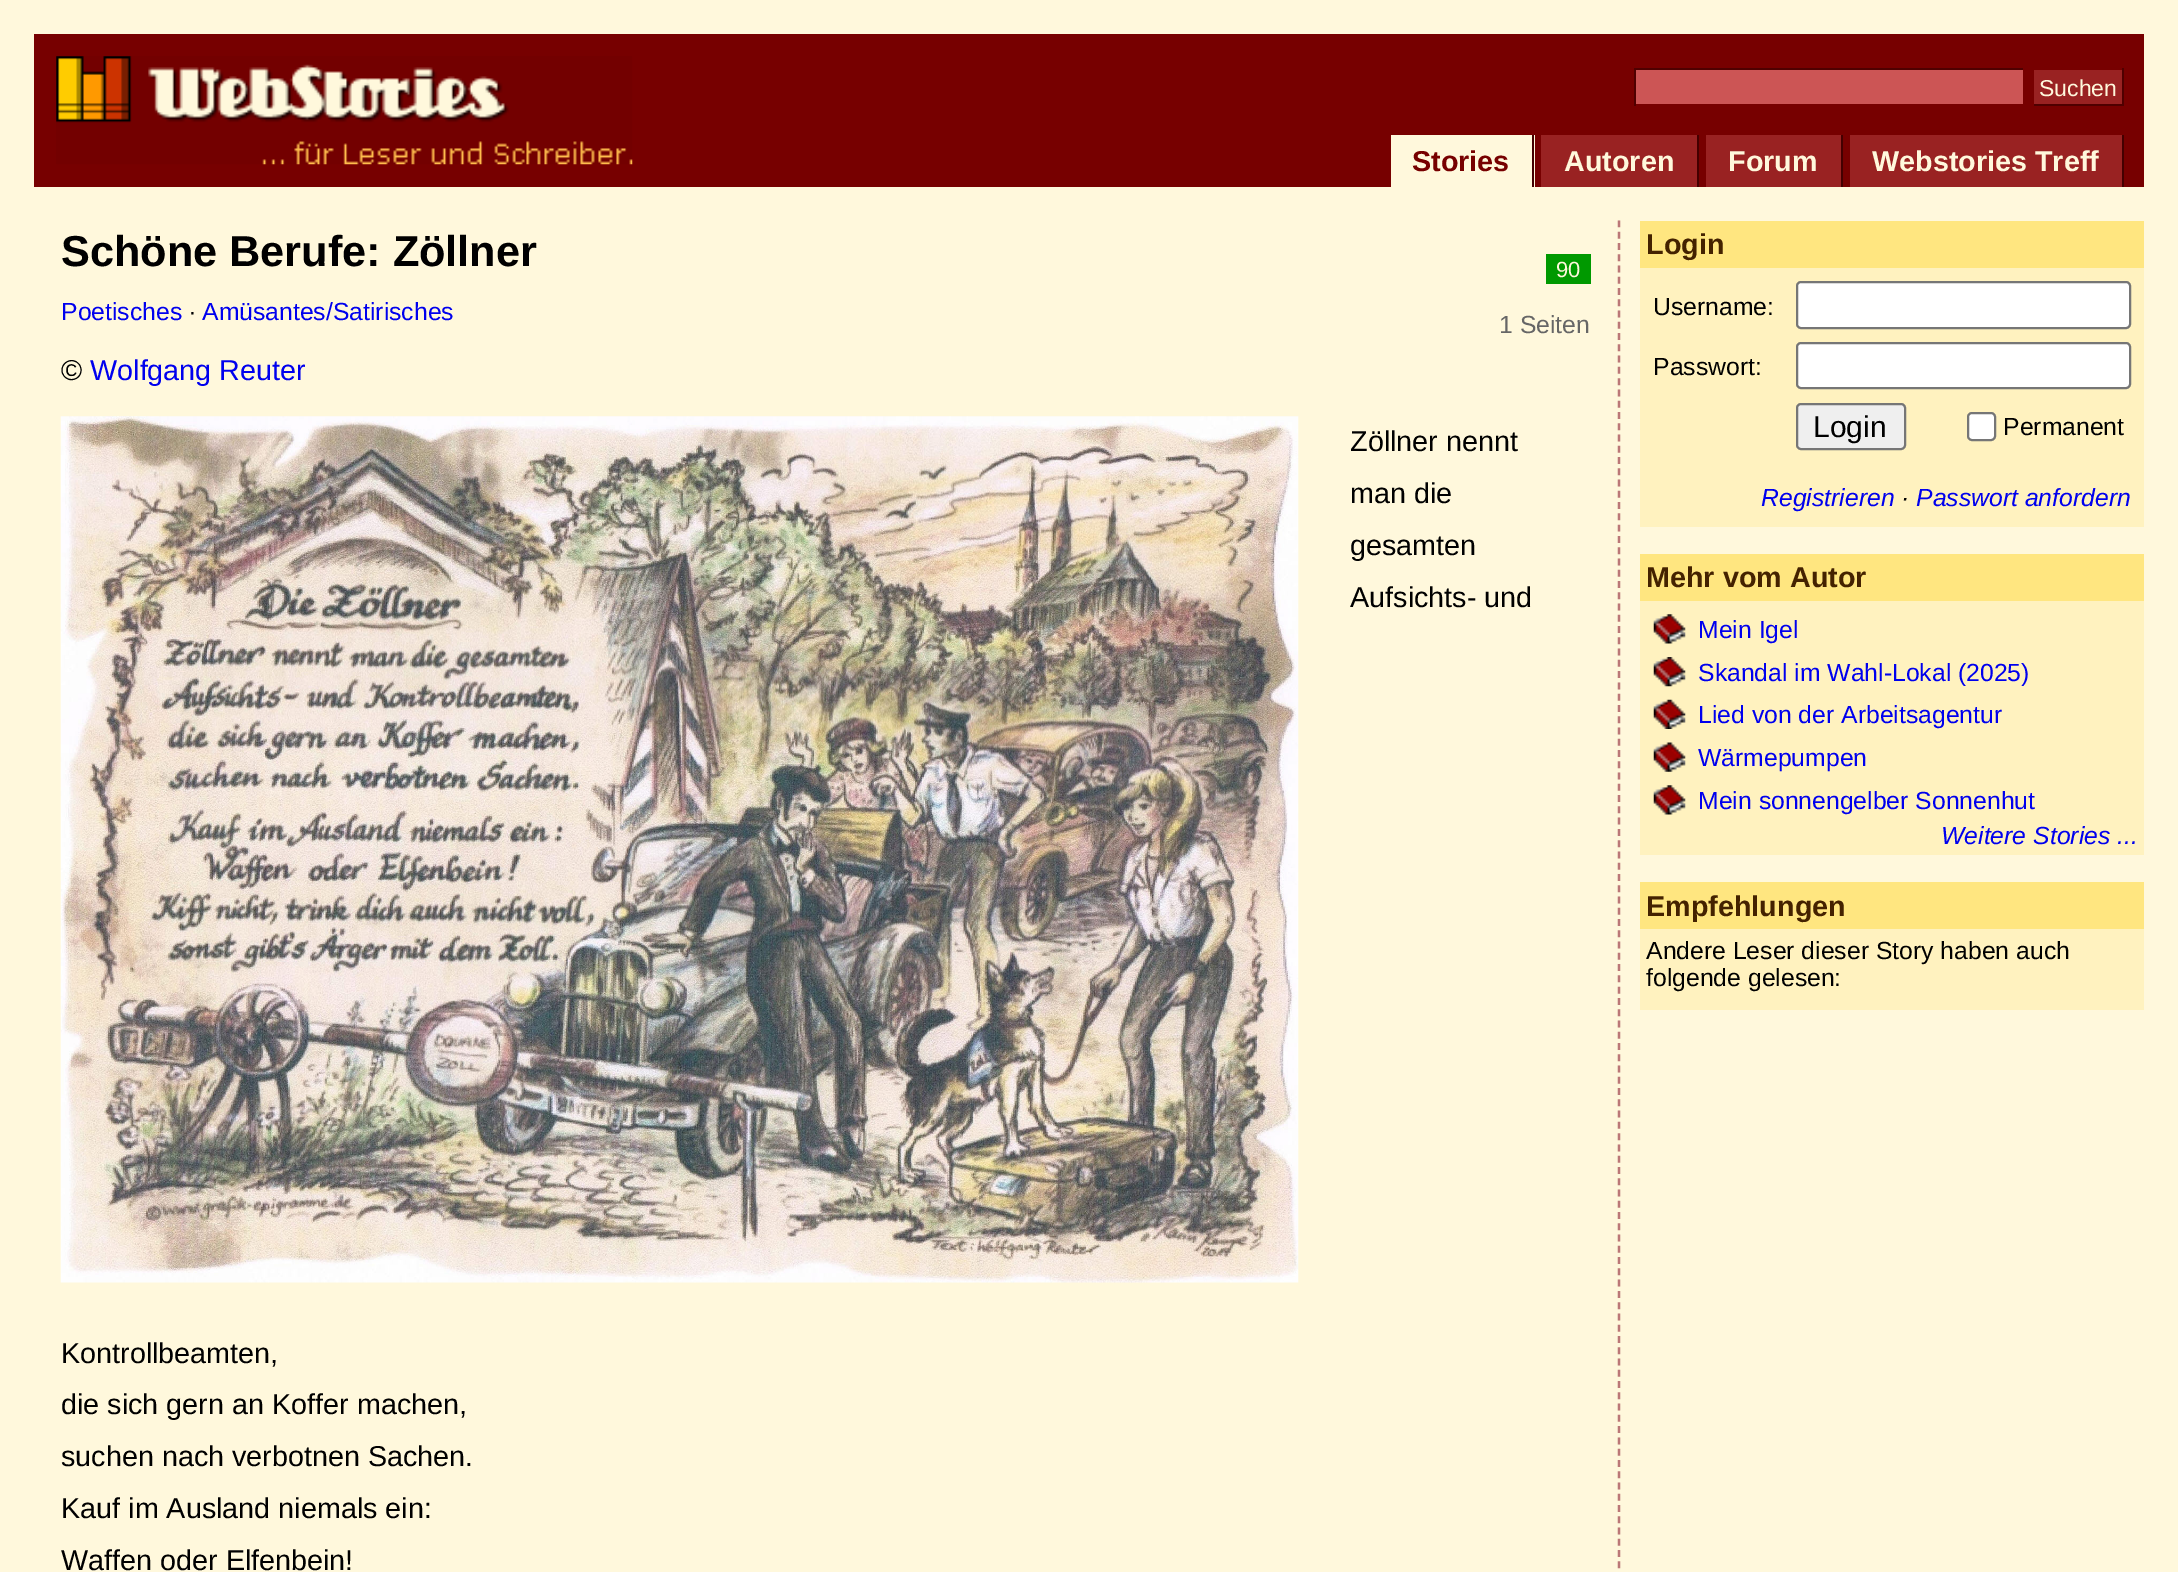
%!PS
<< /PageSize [2178 1572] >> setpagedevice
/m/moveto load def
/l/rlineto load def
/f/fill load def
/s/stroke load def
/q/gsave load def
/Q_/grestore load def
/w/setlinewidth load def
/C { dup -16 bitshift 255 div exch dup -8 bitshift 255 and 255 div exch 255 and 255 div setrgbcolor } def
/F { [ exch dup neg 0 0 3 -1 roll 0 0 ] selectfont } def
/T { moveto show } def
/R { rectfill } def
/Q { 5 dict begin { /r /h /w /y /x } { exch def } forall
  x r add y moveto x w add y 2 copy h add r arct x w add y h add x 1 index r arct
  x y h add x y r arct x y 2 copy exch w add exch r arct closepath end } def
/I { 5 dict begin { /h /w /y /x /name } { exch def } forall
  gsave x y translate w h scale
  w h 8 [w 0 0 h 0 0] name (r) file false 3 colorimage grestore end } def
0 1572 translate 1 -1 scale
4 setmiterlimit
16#FFF8DC C
0 0 2178 1572 R
16#770000 C
34 34 2110 153 R
(1.rgb) 56 56 577 109 I
16#CC5555 C
1636 70 387 34 R
16#4F0000 C
1634 68 391 2 R
16#770000 C
2023 68 2 2 R
16#4F0000 C
1634 68 2 38 R
16#992222 C
2034 70 88 34 R
16#4F0000 C
2122 68 2 38 R
2032 104 92 2 R
16#770000 C
2032 104 2 2 R
/LiberationSans-Regular 23 F
16#FFF8DC C
(Suchen) 2039 96 T
1391 135 144 52 R
/LiberationSans-Bold 28.75 F
16#770000 C
(Stories) 1412 171 T
16#440000 C
1532 135 2 52 R
16#992222 C
1541 135 156 52 R
16#FFF8DC C
(Autoren) 1564 171 T
16#440000 C
1697 135 2 52 R
16#992222 C
1706 135 135 52 R
16#FFF8DC C
(Forum) 1728 171 T
16#440000 C
1841 135 2 52 R
16#992222 C
1850 135 272 52 R
16#FFF8DC C
(Webstories Treff) 1872 171 T
16#440000 C
2122 135 2 52 R
/LiberationSans-Bold 43.25 F
16#000000 C
(Schöne Berufe: Zöllner) 61 266 T
/LiberationSans-Regular 24.75 F
16#0000EE C
(Poetisches) 61 320 T
16#000000 C
(·) 189 320 T
16#0000EE C
(Amüsantes/Satirisches) 202 320 T
16#009900 C
1546 254 45 30 R
/LiberationSans-Regular 22 F
16#FFF8DC C
(90) 1556 277 T
/LiberationSans-Regular 24.75 F
16#666666 C
(1 Seiten) 1499 333 T
/LiberationSans-Regular 28.75 F
16#000000 C
(©) 61 380 T
16#0000EE C
(Wolfgang Reuter) 90 380 T
(2.rgb) 60 416 1239 867 I
16#000000 C
(Zöllner nennt) 1350 451 T
(man die) 1350 503 T
(gesamten) 1350 555 T
(Aufsichts- und) 1350 607 T
(Kontrollbeamten,) 61 1363 T
(die sich gern an Koffer machen,) 61 1414 T
(suchen nach verbotnen Sachen.) 61 1466 T
(Kauf im Ausland niemals ein:) 61 1518 T
(Waffen oder Elfenbein!) 61 1570 T
16#BB7777 C
2.2 w
[6.75 4.52] 0 setdash
1619 220.5 m 0 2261.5 l s
16#FFF2BF C
1640 268 504 259 R
16#FFE680 C
1640 221 504 47 R
/LiberationSans-Bold 28.75 F
16#442200 C
(Login) 1646 254 T
/LiberationSans-Regular 24.75 F
16#000000 C
(Username:) 1653 315 T
16#FFFFFF C
1797 282 333 46 4 Q q f Q_
16#767676 C
2 w
[] 0 setdash
s
16#000000 C
(Passwort:) 1653 375 T
16#FFFFFF C
1797 343 333 45 4 Q q f Q_
16#767676 C
s
16#EFEFEF C
1797 404 108 45 4 Q q f Q_
16#767676 C
s
/LiberationSans-Regular 30 F
16#000000 C
(Login) 1813 437 T
16#FFFFFF C
1968 413 27 27 4 Q q f Q_
16#767676 C
s
/LiberationSans-Regular 24.75 F
16#000000 C
(Permanent) 2003 435 T
/LiberationSans-Italic 24.75 F
16#0000EE C
(Registrieren) 1761 506 T
16#000000 C
(·) 1901 506 T
16#0000EE C
(Passwort anfordern) 1916 506 T
16#FFF2BF C
1640 601 504 254 R
16#FFE680 C
1640 554 504 47 R
/LiberationSans-Bold 28.75 F
16#442200 C
(Mehr vom Autor) 1646 587 T
(3.rgb) 1653 614 33 30 I
/LiberationSans-Regular 24.75 F
16#0000EE C
(Mein Igel) 1698 638 T
(4.rgb) 1653 657 33 30 I
(Skandal im Wahl-Lokal \(2025\)) 1698 681 T
(5.rgb) 1653 699 33 30 I
(Lied von der Arbeitsagentur) 1698 723 T
(6.rgb) 1653 742 33 30 I
(Wärmepumpen) 1698 766 T
(3.rgb) 1653 785 33 30 I
(Mein sonnengelber Sonnenhut) 1698 809 T
/LiberationSans-Italic 24.75 F
(Weitere Stories ...) 1941 844 T
16#FFF2BF C
1640 929 504 81 R
16#FFE680 C
1640 882 504 47 R
/LiberationSans-Bold 28.75 F
16#442200 C
(Empfehlungen) 1646 916 T
/LiberationSans-Regular 24.75 F
16#000000 C
(Andere Leser dieser Story haben auch) 1646 959 T
(folgende gelesen:) 1646 986 T
showpage
